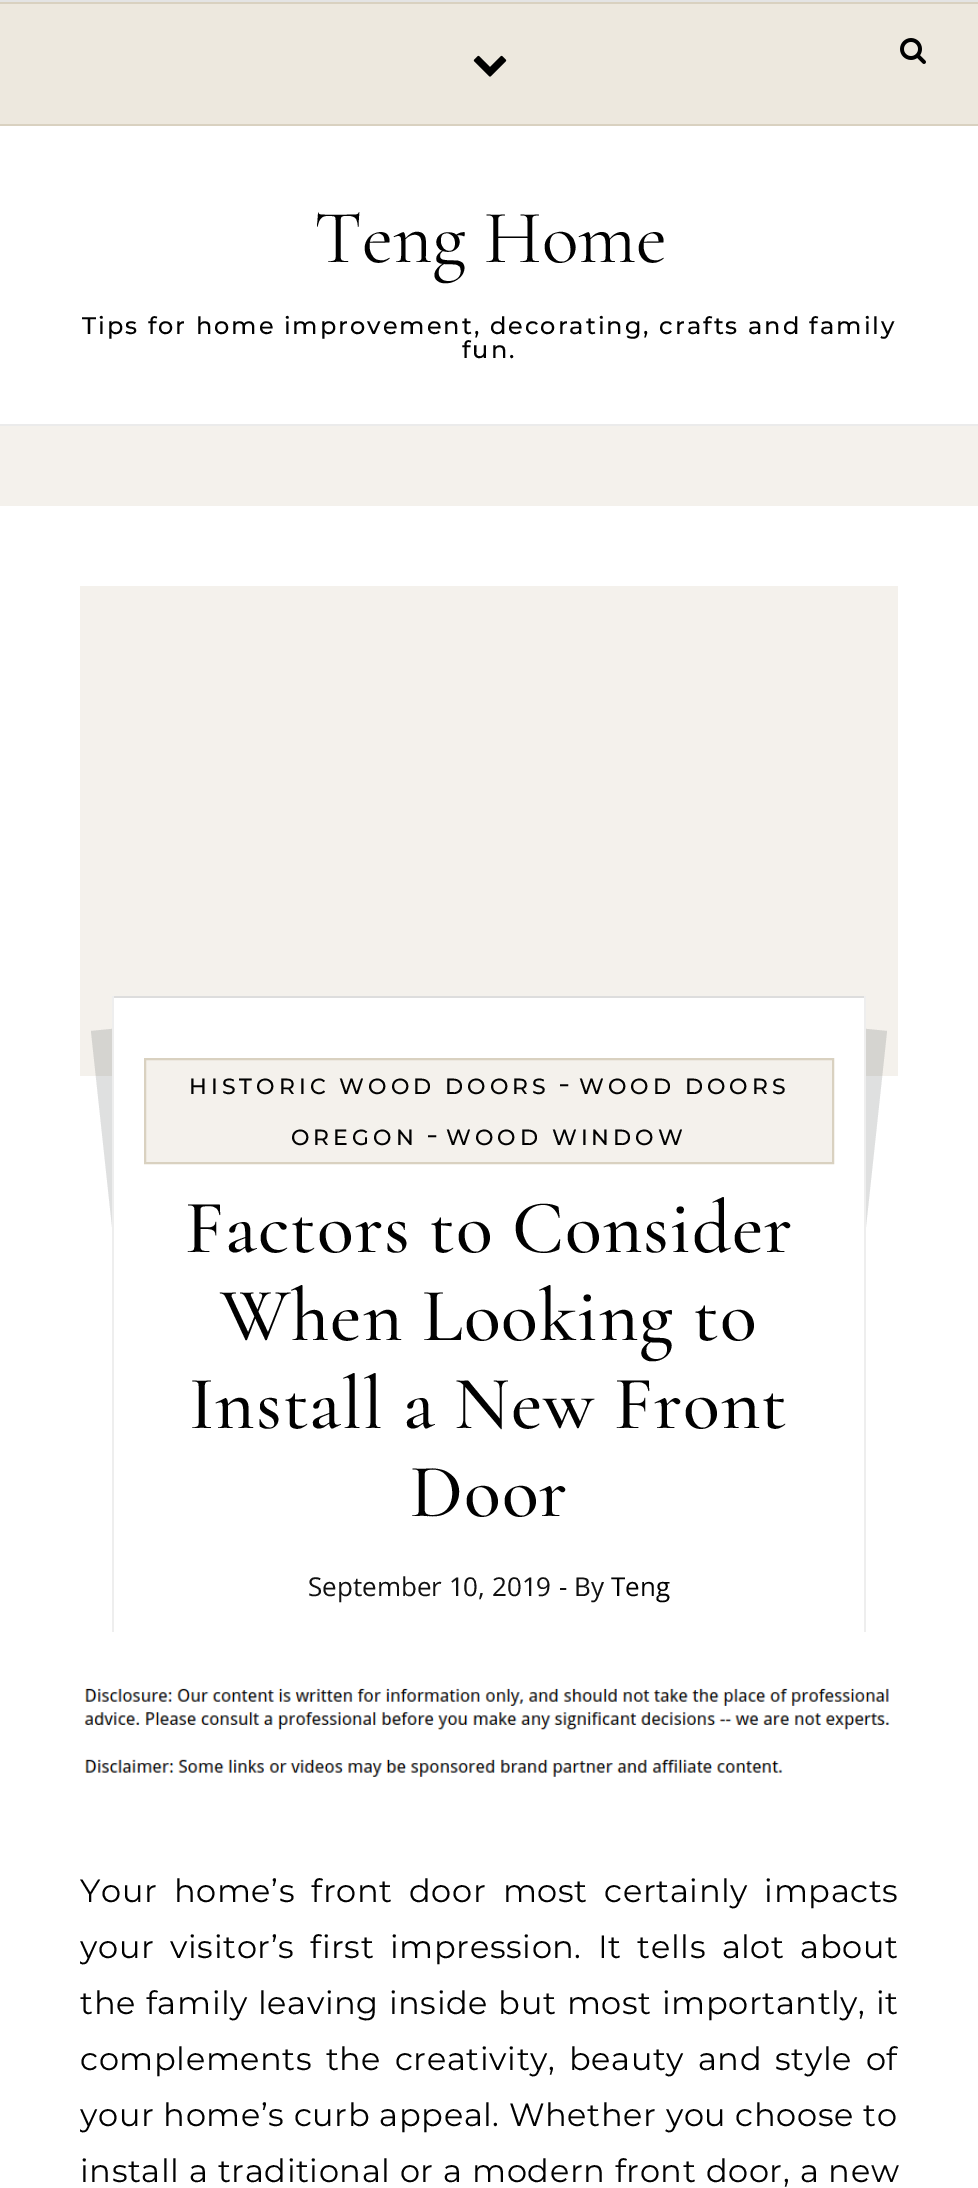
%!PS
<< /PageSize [978 2188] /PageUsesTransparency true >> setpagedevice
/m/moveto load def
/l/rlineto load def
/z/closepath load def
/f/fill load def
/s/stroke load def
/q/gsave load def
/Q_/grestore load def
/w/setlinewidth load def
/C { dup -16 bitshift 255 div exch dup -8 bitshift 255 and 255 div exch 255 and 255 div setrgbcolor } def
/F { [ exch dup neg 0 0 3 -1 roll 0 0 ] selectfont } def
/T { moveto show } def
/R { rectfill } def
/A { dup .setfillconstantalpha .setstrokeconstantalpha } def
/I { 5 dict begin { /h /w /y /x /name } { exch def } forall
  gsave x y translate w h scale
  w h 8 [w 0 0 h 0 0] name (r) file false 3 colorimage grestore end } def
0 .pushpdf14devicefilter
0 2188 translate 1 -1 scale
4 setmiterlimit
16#F4F1EC C
0 0 978 2188 R
16#E4E4E4 C
0 0 978 2 R
16#EDE8DE C
0 4 978 120 R
16#D9D1C0 C
0 2 978 2 R
0 124 978 2 R
(1.rgb) 473 55 34 22 I
(2.rgb) 900 38 26 26 I
16#FFFFFF C
0 126 978 298 R
16#EBEBEB C
0 424 978 2 R
/CormorantGaramond-Regular 76 F
16#010101 C
(Teng Home) 314 262 T
/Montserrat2-Thin 24 F
82 334 m 2 0 (Tips for home improvement, decorating, crafts and family) ashow
462 358 m 2 0 (fun.) ashow
16#FFFFFF C
0 506 978 1682 R
16#F4F1EC C
80 586 818 490 R
0.15 A
16#272C31 C
91 1031 m 40 -4 l 31 298 l -39 4 l z f
847 1027 m 40 4 l -32 298 l -39 -4 l z f
1 A
16#FFFFFF C
114 998 750 331 R
16#DDDDDD C
112 996 754 2 R
16#EEEEEE C
864 996 2 636 R
112 996 2 636 R
16#F4F1EC C
145 1059 m 688 0 l 0 104 l -688 0 l z q f Q_
16#D9D1C0 C
2 w
s
/Montserrat2-Thin 22 F
16#010101 C
189 1094 m 4 0 (HISTORIC WOOD DOORS) ashow
/Montserrat-Thin 32 F
(-) 558 1094 T
/Montserrat2-Thin 22 F
579 1094 m 4 0 (WOOD DOORS) ashow
291 1145 m 4 0 (OREGON) ashow
/Montserrat-Thin 32 F
(-) 426 1145 T
/Montserrat2-Thin 22 F
446 1145 m 4 0 (WOOD WINDOW) ashow
/CormorantGaramond-Medium 76 F
185 1252 m 1 0 (Factors to Consider) ashow
220 1340 m 1 0 (When Looking to) ashow
189 1428 m 1 0 (Install a New Front) ashow
410 1516 m 1 0 (Door) ashow
/OpenSans-Regular 26 F
16#111111 C
(September 10, 2019) 308 1596 T
(- By) 559 1596 T
16#010101 C
(Teng) 611 1596 T
(3.rgb) 84 1688 806 89 I
/Montserrat-Thin 32 F
80 1902 m 7.25 0 32 .65 0 (Your home’s front door most certainly impacts) awidthshow
q
80 1632 818 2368 rectclip
80 1958 m 6.75 0 32 .65 0 (your visitor’s first impression. It tells alot about) awidthshow
Q_
80 2014 m 1 0 32 .65 0 (the family leaving inside but most importantly, it) awidthshow
80 2070 m 4.25 0 32 .65 0 (complements the creativity, beauty and style of) awidthshow
q
80 1632 818 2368 rectclip
80 2126 m .65 0 (your home’s curb appeal. Whether you choose to) ashow
Q_
80 2182 m .25 0 32 .65 0 (install a traditional or a modern front door, a new) awidthshow
.poppdf14devicefilter showpage
